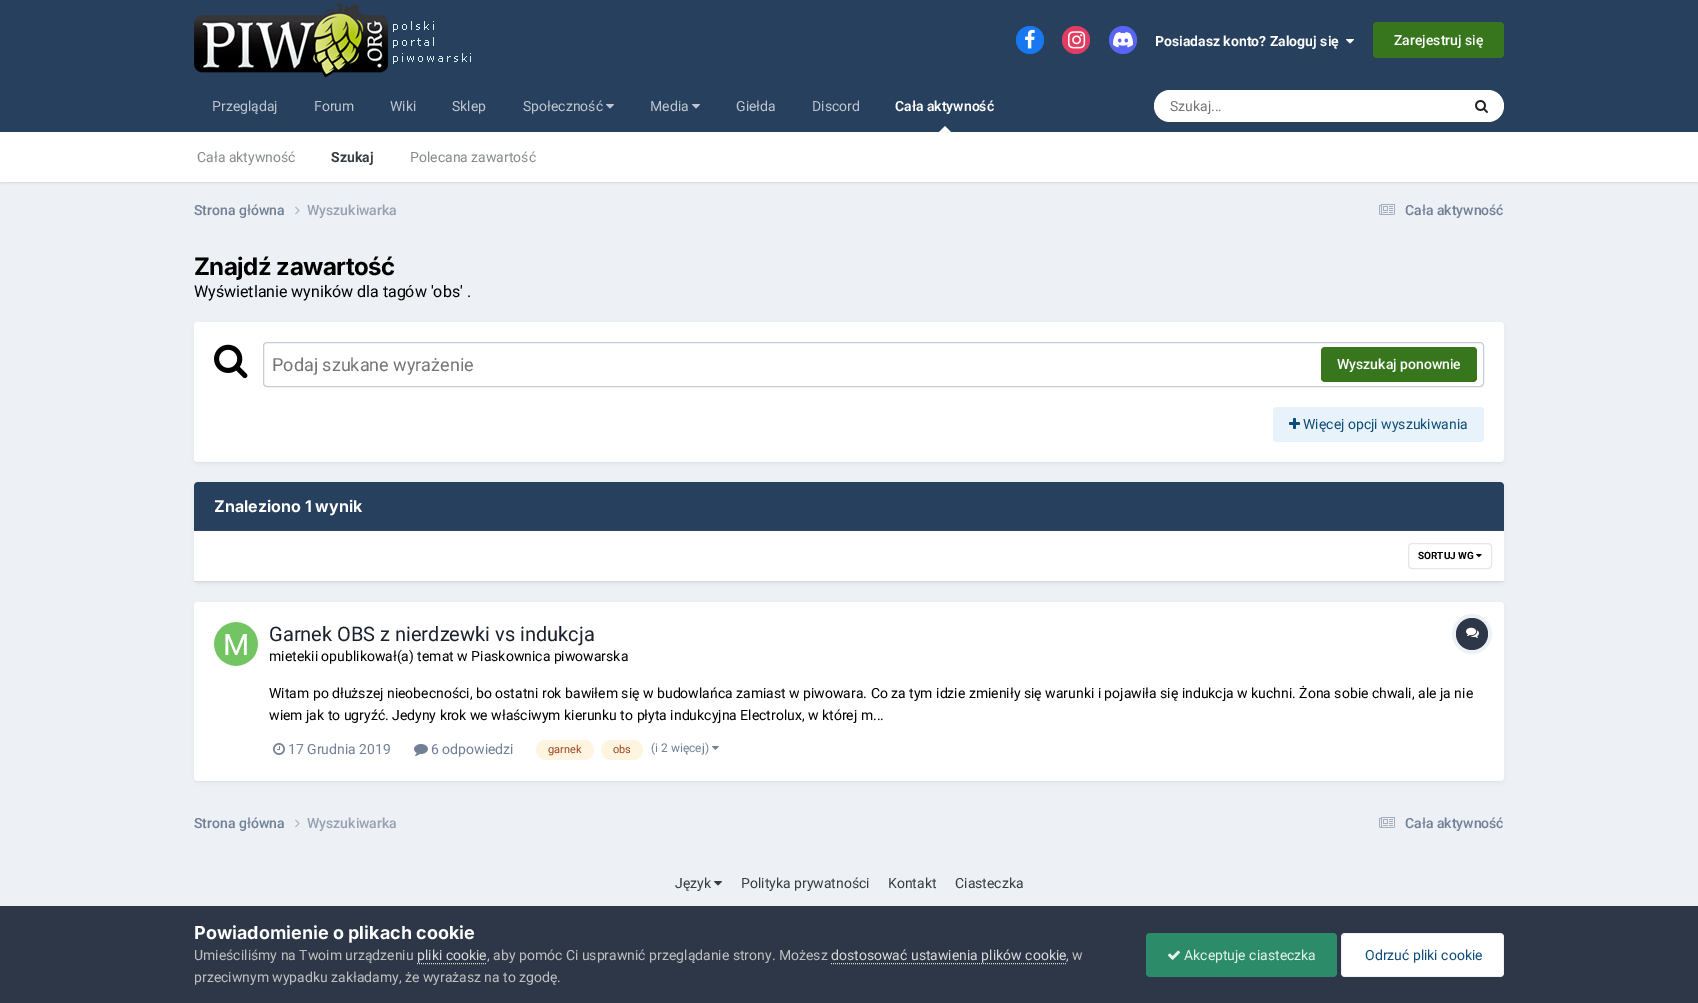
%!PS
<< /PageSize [1698 1003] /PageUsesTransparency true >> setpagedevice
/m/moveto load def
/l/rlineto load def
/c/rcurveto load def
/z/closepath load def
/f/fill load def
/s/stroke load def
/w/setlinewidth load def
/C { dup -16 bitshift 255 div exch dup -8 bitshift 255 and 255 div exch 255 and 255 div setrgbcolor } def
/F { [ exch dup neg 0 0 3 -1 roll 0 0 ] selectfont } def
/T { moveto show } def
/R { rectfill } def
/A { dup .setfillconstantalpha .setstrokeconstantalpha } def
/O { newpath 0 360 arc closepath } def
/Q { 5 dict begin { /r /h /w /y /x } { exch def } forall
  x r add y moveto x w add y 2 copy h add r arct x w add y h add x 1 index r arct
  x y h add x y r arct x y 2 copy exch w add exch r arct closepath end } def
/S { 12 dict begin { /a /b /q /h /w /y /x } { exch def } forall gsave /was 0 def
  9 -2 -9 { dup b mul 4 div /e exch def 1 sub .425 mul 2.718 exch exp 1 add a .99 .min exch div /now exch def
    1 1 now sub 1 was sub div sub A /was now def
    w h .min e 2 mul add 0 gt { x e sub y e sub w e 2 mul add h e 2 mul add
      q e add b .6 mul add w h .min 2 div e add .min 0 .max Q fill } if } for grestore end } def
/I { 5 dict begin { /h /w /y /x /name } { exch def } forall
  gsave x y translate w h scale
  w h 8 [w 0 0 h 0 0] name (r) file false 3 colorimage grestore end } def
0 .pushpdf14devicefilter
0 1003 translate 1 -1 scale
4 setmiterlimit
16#EDF0F4 C
0 0 1698 1003 R
16#27405E C
0 0 1698 132 R
(1.rgb) 194 3 277 74 I
16#1778F2 C
1030 40 14 O f
(2.rgb) 1025 29 10 20 I
16#E13D62 C
1076 40 14 O f
(3.rgb) 1068 31 18 18 I
16#5865F2 C
1123 40 14 O f
(4.rgb) 1113 32 20 16 I
/Roboto-Bold 14 F
16#FFFFFF C
(Posiadasz konto? Zaloguj się) 1155 46 T
(5.rgb) 1346 39 8 5 I
16#38761D C
1373 22 131 36 4 Q f
/Roboto-Medium 14 F
16#FFFFFF C
(Zarejestruj się) 1394 45 T
/Roboto-SemiBold 14 F
(Cała aktywność) 895 111 T
16#000000 C
0 133 1698 50 0 1 .1 S
16#FFFFFF C
951 132 m -12 0 l 6 -6 l z f
0 132 1698 50 R
/Roboto-Regular 14 F
16#868A8D C
(Cała aktywność) 197 162 T
/Roboto-Bold 14 F
16#353C41 C
(Szukaj) 331 162 T
/Roboto-Regular 14 F
16#868A8D C
(Polecana zawartość) 410 162 T
16#BEC6CF C
(Przeglądaj) 212 111 T
(Forum) 314 111 T
(Wiki) 390 111 T
(Sklep) 452 111 T
(Społeczność) 523 111 T
(6.rgb) 606 104 8 5 I
(Media) 650 111 T
(6.rgb) 692 104 8 5 I
(Giełda) 736 111 T
(Discord) 812 111 T
16#FFFFFF C
1154 90 350 32 16 Q f
16#757575 C
(Szukaj...) 1170 111 T
(7.rgb) 1475 100 13 13 I
/Roboto-Medium 14 F
16#718096 C
(Strona główna) 194 215 T
(8.rgb) 295 206 5 9 I
16#96A2B2 C
(Wyszukiwarka) 307 215 T
(9.rgb) 1379 204 16 11 I
16#718096 C
(Cała aktywność) 1405 215 T
/Inter-Bold 24 F
16#000000 C
194 275 m -.5 0 (Znajdź zawartość) ashow
/Roboto-Regular 16 F
(Wyświetlanie wyników dla tagów 'obs' .) 194 297 T
16#2D3748 C
195 325 1308 138 3 2 .1 S
16#FFFFFF C
194 322 1310 140 4 Q f
(10.rgb) 214 344 34 35 I
16#C6CCD5 C
263.5 342.5 1220 44 3.5 Q s
/Roboto-Regular 18 F
16#757575 C
(Podaj szukane wyrażenie) 272 371 T
16#38761D C
1321 347 156 35 4 Q f
/Roboto-Medium 14 F
16#FFFFFF C
(Wyszukaj ponownie) 1337 369 T
16#E8F2FA C
1273 407 211 35 4 Q f
(11.rgb) 1289 418 11 11 I
/Roboto-Regular 14 F
16#0E4C79 C
(Więcej opcji wyszukiwania) 1303 429 T
16#2D3748 C
195 485 1308 98 3 2 .1 S
16#27405E C
198 482 m 1302 0 l 2 0 4 2 4 4 c 0 45 l -1310 0 l 0 -45 l 0 -2 2 -4 4 -4 c z f
16#324A66 C
194 530 1310 1 R
/Inter-Bold 16 F
16#FFFFFF C
(Znaleziono 1 wynik) 214 512 T
194 531 1310 50 R
16#D9D9D9 C
194 581 1310 1 R
(12.rgb) 1476 554 6 4 I
16#E6E6E6 C
1408.5 543.5 83 25 3.5 Q s
/Roboto-Bold 10 F
16#000000 C
(SORTUJ WG) 1418 559 T
16#2D3748 C
195 605 1308 177 3 2 .1 S
16#FFFFFF C
194 602 1310 179 4 Q f
(13.rgb) 214 622 44 44 I
/Roboto-Regular 20 F
16#1A202C C
(Garnek OBS z nierdzewki vs indukcja) 269 641 T
/Roboto-Regular 14 F
16#000000 C
(mietekii opublikował\(a\) temat w Piaskownica piwowarska) 269 661 T
16#EDF0F4 C
4 w
1472 634 18 O s
16#2D3748 C
1472 634 16 O f
(14.rgb) 1466 627 13 11 I
16#000000 C
(Witam po dłuższej nieobecności, bo ostatni rok bawiłem się w budowlańca zamiast w piwowara. Co za tym idzie zmieniły się warunki i pojawiła się indukcja w kuchni. Żona sobie chwali, ale ja nie) 269 698 T
(wiem jak to ugryźć. Jedyny krok we właściwym kierunku to płyta indukcyjna Electrolux, w której m...) 269 720 T
(15.rgb) 273 743 12 12 I
16#718096 C
(17 Grudnia 2019) 288 754 T
(16.rgb) 414 744 14 12 I
(6 odpowiedzi) 431 754 T
16#FFF4DF C
536 740 58 20 10 Q f
/Roboto-Regular 11 F
16#9C4221 C
(garnek) 548 753 T
16#FFF4DF C
601 740 42 20 10 Q f
16#9C4221 C
(obs) 613 753 T
/Roboto-Regular 12 F
16#718096 C
(\(i 2 więcej\)) 651 752 T
(17.rgb) 712 746 7 4 I
/Roboto-Medium 14 F
(Strona główna) 194 828 T
(8.rgb) 295 819 5 9 I
16#96A2B2 C
(Wyszukiwarka) 307 828 T
(9.rgb) 1379 817 16 11 I
16#718096 C
(Cała aktywność) 1405 828 T
/Roboto-Regular 14 F
16#353C41 C
(Język) 675 888 T
(18.rgb) 714 881 8 5 I
(Polityka prywatności) 741 888 T
(Kontakt) 888 888 T
(Ciasteczka) 955 888 T
16#2D3748 C
0 906 1698 97 R
/Inter-Bold 18 F
16#FFFFFF C
(Powiadomienie o plikach cookie) 194 939 T
/Roboto-Regular 14 F
16#C0C0C0 C
(Umieściliśmy na Twoim urządzeniu) 194 960 T
16#DADADA C
(pliki cookie) 417 960 T
1 w
[1 1] 0 setdash
417 963.5 m 70 0 l s
16#C0C0C0 C
(, aby pomóc Ci usprawnić przeglądanie strony. Możesz) 487 960 T
16#DADADA C
(dostosować ustawienia plików cookie) 831 960 T
831 963.5 m 235 0 l s
16#C0C0C0 C
(, w) 1066 960 T
(przeciwnym wypadku zakładamy, że wyrażasz na to zgodę.) 194 982 T
16#2C8C69 C
1146 933 191 44 4 Q f
(19.rgb) 1168 950 12 10 I
16#E3F3EC C
(Akceptuje ciasteczka) 1184 960 T
16#FFFFFF C
1341 933 163 44 4 Q f
0.07 A
16#0E4C79 C
[] 0 setdash
1341.5 933.5 162 43 3.5 Q s
1 A
(Odrzuć pliki cookie) 1365 960 T
.poppdf14devicefilter showpage
